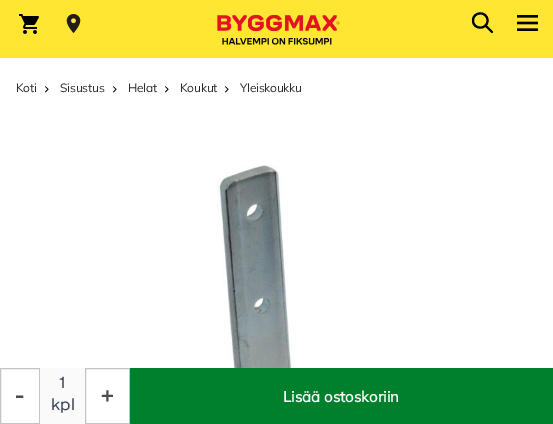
%!PS
<< /PageSize [553 424] >> setpagedevice
/m/moveto load def
/l/rlineto load def
/c/rcurveto load def
/z/closepath load def
/s/stroke load def
/w/setlinewidth load def
/C { dup -16 bitshift 255 div exch dup -8 bitshift 255 and 255 div exch 255 and 255 div setrgbcolor } def
/F { [ exch dup neg 0 0 3 -1 roll 0 0 ] selectfont } def
/T { moveto show } def
/R { rectfill } def
/I { 5 dict begin { /h /w /y /x /name } { exch def } forall
  gsave x y translate w h scale
  w h 8 [w 0 0 h 0 0] name (r) file false 3 colorimage grestore end } def
0 424 translate 1 -1 scale
4 setmiterlimit
16#FFFFFF C
0 0 553 424 R
16#FFE632 C
0 0 553 58 R
(1.rgb) 19 14 20 20 I
(2.rgb) 66 14 15 20 I
(3.rgb) 217 14 123 31 I
16#000000 C
2.1 w
1 setlinecap
1 setlinejoin
492 32 m -6.5 -6.5 l 487.5 20.5 m 0 9.5 -14.5 9.5 -14.5 0 c 0 -9.5 14.5 -9.5 14.5 0 c z s
(4.rgb) 517 15 21 16 I
/Mulish-Regular 12 F
16#2D2A25 C
16 92 m -.25 0 (Koti) ashow
(5.rgb) 45 86 4 7 I
60 92 m -.25 0 (Sisustus) ashow
(5.rgb) 113 86 4 7 I
128 92 m -.25 0 (Helat) ashow
(5.rgb) 165 86 4 7 I
180 92 m -.25 0 (Koukut) ashow
(5.rgb) 225 86 4 7 I
240 92 m -.25 0 (Yleiskoukku) ashow
(6.rgb) 217 165 165 203 I
16#C4C4C4 C
1 w
0 setlinecap
0 setlinejoin
.5 368.5 39 55 rectstroke
/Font-Bold 20 F
16#4C4C4C C
(-) 15 403 T
16#FAFAFA C
40 368 45 56 R
/Font-Regular 16 F
16#374151 C
(1) 59 388 T
(kpl) 51 410 T
16#C4C4C4 C
85.5 368.5 44 55 rectstroke
/Font-Bold 20 F
16#4C4C4C C
(+) 101 403 T
16#00802D C
130 368 423 56 R
/Mulish-Bold 15 F
16#FFFFFF C
(Lisää ostoskoriin) 283 402 T
showpage
